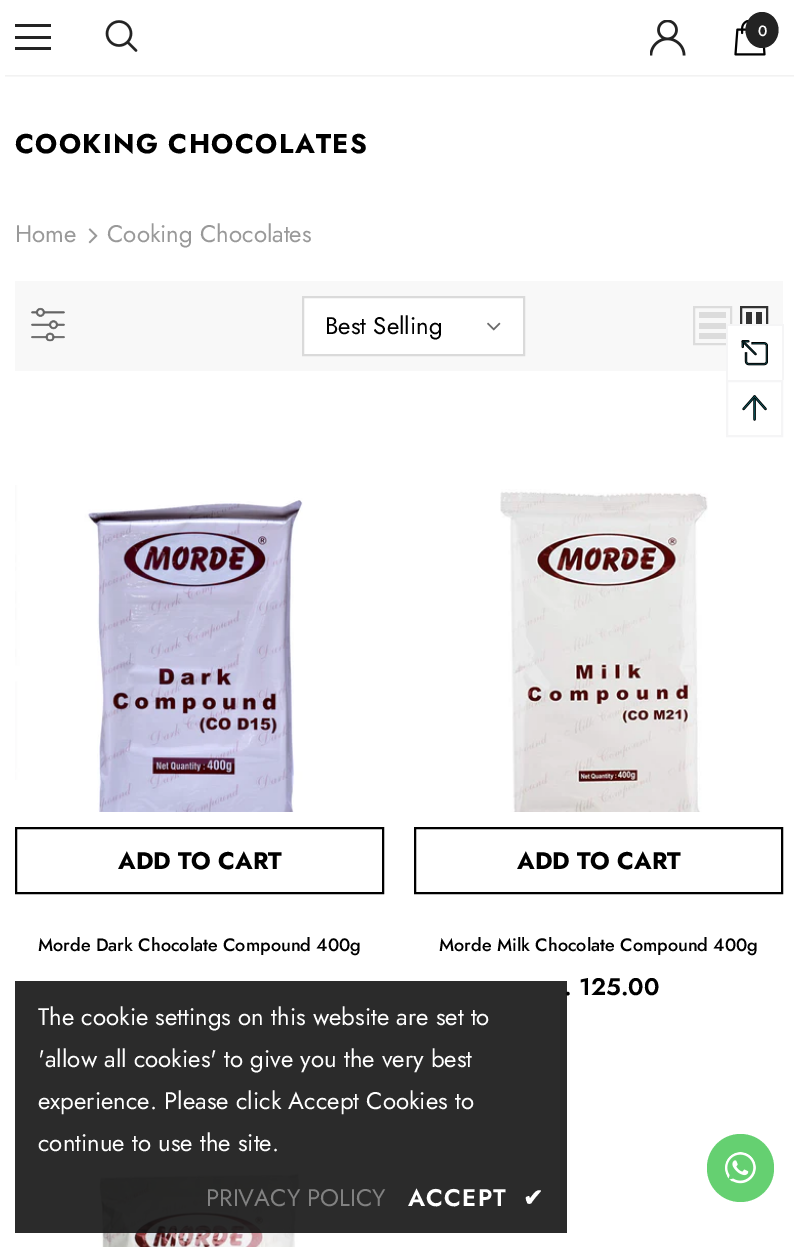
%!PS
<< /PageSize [798 1247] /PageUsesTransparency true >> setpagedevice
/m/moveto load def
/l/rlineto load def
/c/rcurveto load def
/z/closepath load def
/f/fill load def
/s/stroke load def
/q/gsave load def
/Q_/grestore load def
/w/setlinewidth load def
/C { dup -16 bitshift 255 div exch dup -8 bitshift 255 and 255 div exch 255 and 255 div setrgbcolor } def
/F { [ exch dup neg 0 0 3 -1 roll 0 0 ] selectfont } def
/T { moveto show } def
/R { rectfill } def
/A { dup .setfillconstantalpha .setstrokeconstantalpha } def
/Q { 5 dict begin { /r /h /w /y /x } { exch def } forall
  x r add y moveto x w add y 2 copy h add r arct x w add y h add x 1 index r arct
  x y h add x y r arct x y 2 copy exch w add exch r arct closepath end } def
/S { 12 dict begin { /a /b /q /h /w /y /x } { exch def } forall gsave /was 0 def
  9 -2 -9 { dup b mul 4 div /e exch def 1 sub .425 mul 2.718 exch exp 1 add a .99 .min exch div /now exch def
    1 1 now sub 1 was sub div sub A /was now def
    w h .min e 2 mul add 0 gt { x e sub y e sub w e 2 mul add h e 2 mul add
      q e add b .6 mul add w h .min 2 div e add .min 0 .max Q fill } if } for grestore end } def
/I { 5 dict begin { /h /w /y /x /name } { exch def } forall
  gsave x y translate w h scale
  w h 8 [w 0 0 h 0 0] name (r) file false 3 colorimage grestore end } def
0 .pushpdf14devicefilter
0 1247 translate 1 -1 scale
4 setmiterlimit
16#FFFFFF C
0 0 798 1247 R
q
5 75 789 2 rectclip
16#000000 C
5 9 789 66 0 2 .12 S
Q_
16#232323 C
15 24 36 3 R
15 36 36 3 R
15 47 36 3 R
(1.rgb) 105 20 33 32 I
(2.rgb) 650 20 36 36 I
(3.rgb) 734 20 32 36 I
762 12 m 9 0 16.5 8 16.5 18 c 0 10 -7.5 18 -16.5 18 c -9 0 -16.5 -8 -16.5 -18 c 0 -10 7.5 -18 16.5 -18 c z f
/Jost-Medium 15 F
16#FFFFFF C
(0) 758 36 T
/Jost-Bold 27 F
16#000000 C
15 153 m 1.4 0 (COOKING CHOCOLATES) ashow
/Jost-Regular 24 F
16#999999 C
(Home) 15 242 T
(4.rgb) 88 228 10 16 I
(Cooking Chocolates) 107 242 T
16#F8F8F8 C
15 281 768 90 R
(5.rgb) 31 307 34 35 I
16#FFFFFF C
303 297 m 221 0 l 0 58 l -221 0 l z q f Q_
16#DADADA C
2 w
s
16#000000 C
(Best Selling) 325 334 T
(6.rgb) 487 322 14 9 I
16#DCDCDC C
694 307 37 37 rectstroke
699 333 27 6 R
699 323 27 6 R
699 312 27 6 R
16#323232 C
741 307 26 37 rectstroke
756 312 6 12 R
746 312 6 12 R
(7.rgb) 15 485 288 327 I
16#000000 C
16 828 367 65 rectstroke
/Jost-Bold 24 F
(ADD TO CART) 118 869 T
/Jost-Medium 18 F
(Morde Dark Chocolate Compound 400g) 38 951 T
(8.rgb) 500 489 208 323 I
415 828 367 65 rectstroke
/Jost-Bold 24 F
(ADD TO CART) 517 869 T
/Jost-Medium 18 F
(Morde Milk Chocolate Compound 400g) 439 951 T
/Jost-SemiBold 24 F
(. 125.00) 564 995 T
(9.rgb) 98 1173 204 74 I
0.9 A
16#141414 C
15 981 552 252 R
/Jost-Regular 24 F
1 A
16#FFFFFF C
(The cookie settings on this website are set to) 38 1025 T
('allow all cookies' to give you the very best) 38 1067 T
(experience. Please click Accept Cookies to) 38 1109 T
(continue to use the site.) 38 1151 T
16#818181 C
(PRIVACY POLICY) 206 1206 T
/Jost-SemiBold 24 F
16#FFFFFF C
408 1206 m 1.25 0 (ACCEPT) ashow
/DejaVuSans-Bold 24 F
523 1206 m 1.25 0 (✔) ashow
728 326 54 45 R
16#F5F5F6 C
726 324 57 2 R
782 324 2 56 R
726 324 2 56 R
(10.rgb) 741 340 27 26 I
727 381 55 55 rectstroke
(11.rgb) 742 395 25 26 I
16#65D071 C
707 1134 67 68 33.5 Q f
(12.rgb) 725 1152 31 32 I
.poppdf14devicefilter showpage
